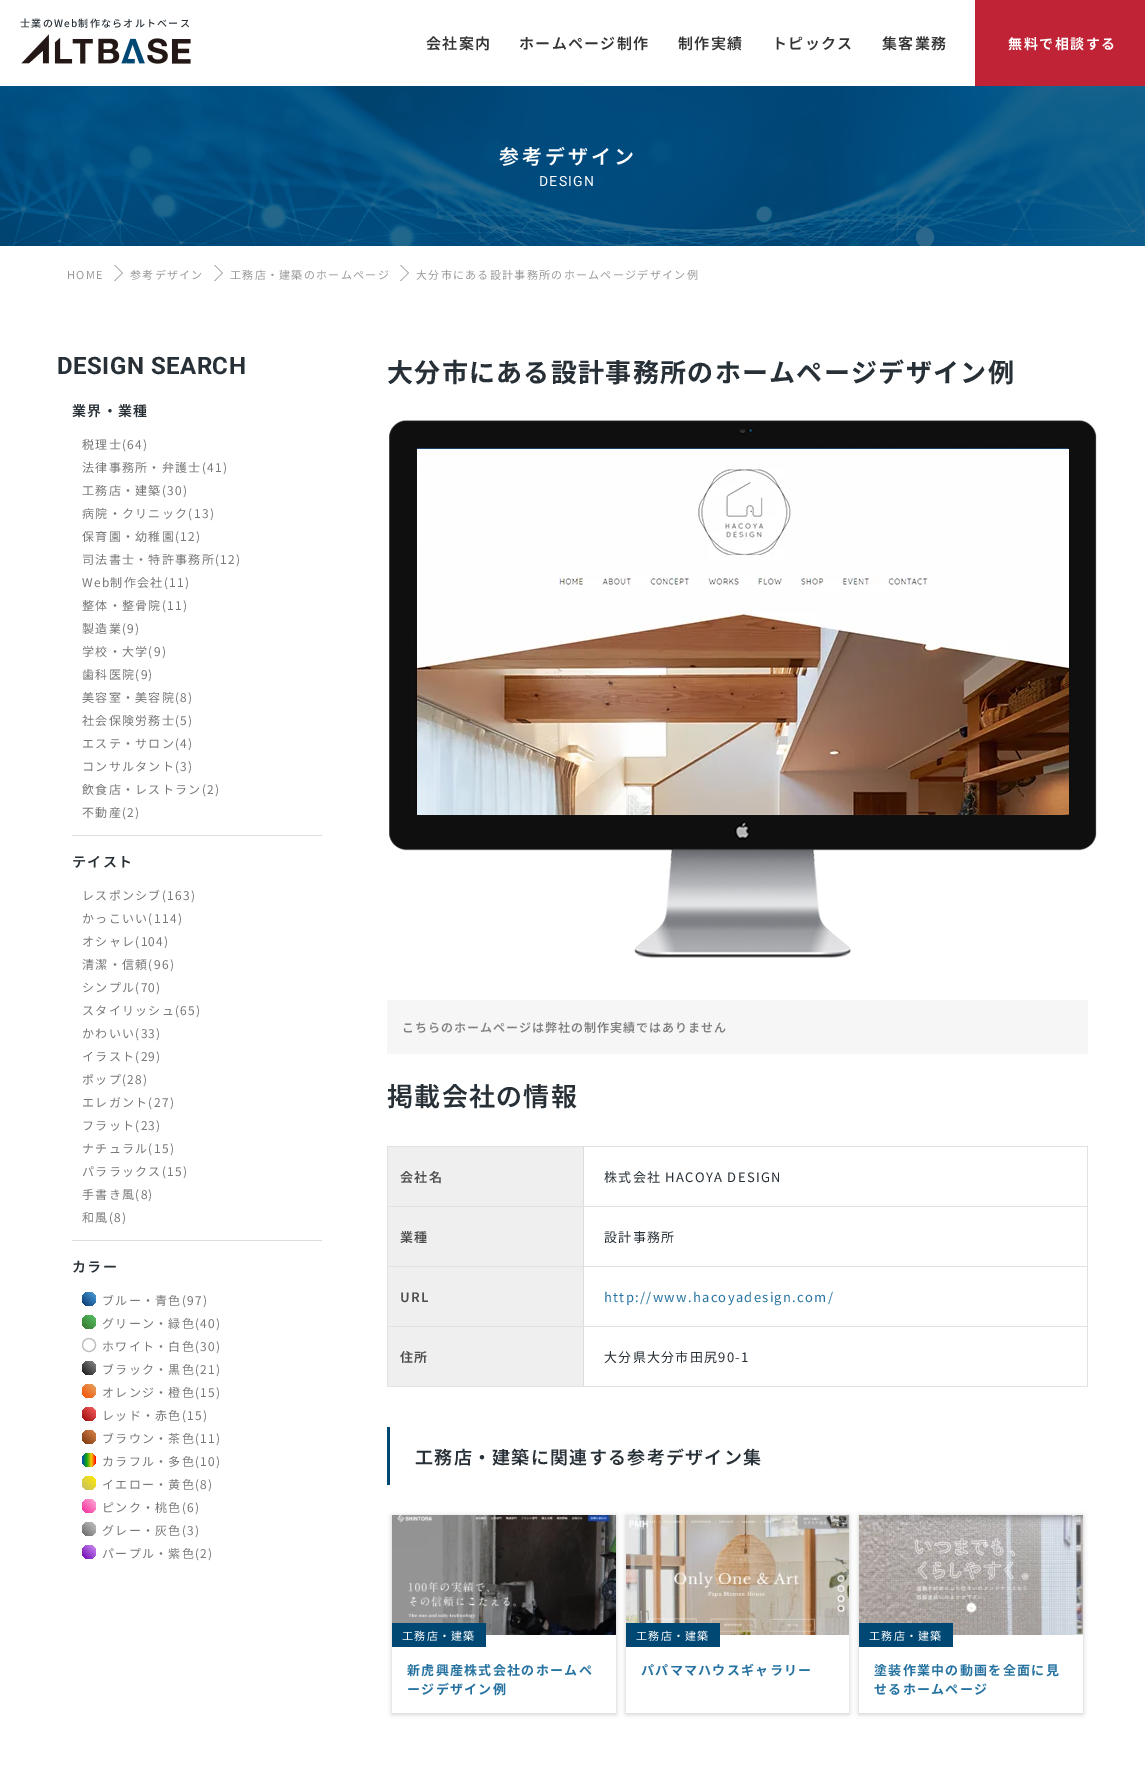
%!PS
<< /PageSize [1145 1770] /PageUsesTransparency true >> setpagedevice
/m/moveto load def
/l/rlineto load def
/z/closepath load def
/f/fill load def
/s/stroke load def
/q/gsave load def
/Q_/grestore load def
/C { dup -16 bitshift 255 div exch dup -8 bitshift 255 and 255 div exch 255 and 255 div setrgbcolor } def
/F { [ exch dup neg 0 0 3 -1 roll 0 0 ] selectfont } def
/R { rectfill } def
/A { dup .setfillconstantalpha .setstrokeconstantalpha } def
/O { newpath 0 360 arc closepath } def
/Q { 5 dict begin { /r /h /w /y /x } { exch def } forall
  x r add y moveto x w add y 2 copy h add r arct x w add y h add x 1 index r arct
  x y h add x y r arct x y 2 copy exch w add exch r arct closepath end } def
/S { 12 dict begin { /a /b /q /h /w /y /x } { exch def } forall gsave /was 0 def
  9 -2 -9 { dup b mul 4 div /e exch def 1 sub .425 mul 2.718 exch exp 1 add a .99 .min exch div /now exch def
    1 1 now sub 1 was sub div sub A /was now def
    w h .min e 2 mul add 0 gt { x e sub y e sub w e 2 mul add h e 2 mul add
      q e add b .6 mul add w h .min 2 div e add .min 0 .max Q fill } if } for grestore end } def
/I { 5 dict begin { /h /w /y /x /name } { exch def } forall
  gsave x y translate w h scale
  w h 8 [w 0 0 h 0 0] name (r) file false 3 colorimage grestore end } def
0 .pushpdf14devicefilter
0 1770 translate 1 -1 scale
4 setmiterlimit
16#FFFFFF C
0 0 1145 1770 R
/NotoSansJP-Medium 10 F
16#283037 C
20 27 m 1.25 0 (士業のWeb制作ならオルトベース) ashow
(1.rgb) 21 34 170 30 I
/NotoSansJP-SemiBold 15 F
16#333333 C
426 49 m 1.3 0 (会社案内) ashow
519 49 m 1.3 0 (ホームページ制作) ashow
678 49 m 1.3 0 (制作実績) ashow
772 49 m 1.3 0 (トピックス) ashow
882 49 m 1.3 0 (集客業務) ashow
16#C02335 C
975 0 170 86 R
/NotoSansJP-Bold 14 F
16#FFFFFF C
1008 49 m 1.5 0 (無料で相談する) ashow
(2.rgb) 0 86 1145 160 I
/NotoSansJP-SemiBold 20 F
499 164 m 3 0 (参考デザイン) ashow
/Roboto-Regular 14 F
539 186 m 1.3 0 (DESIGN) ashow
/NotoSansJP-Regular 11 F
16#999999 C
67 279 m 1.3 0 (HOME) ashow
114 265 m 1 0 l 8 8 l -1 0 l z 122 273 m 1 0 l -8 8 l -1 0 l z f
130 279 m 1.3 0 (参考デザイン) ashow
214 265 m 1 0 l 8 8 l -1 0 l z 222 273 m 1 0 l -8 8 l -1 0 l z f
230 279 m 1.3 0 (工務店・建築のホームページ) ashow
400 265 m 1 0 l 8 8 l -1 0 l z 408 273 m 1 0 l -8 8 l -1 0 l z f
416 279 m 1.3 0 (大分市にある設計事務所のホームページデザイン例) ashow
/Roboto-Bold 24 F
16#283037 C
57 374 m .5 0 (DESIGN SEARCH) ashow
16#DDDDDD C
72 835 250 1 R
/NotoSansJP-SemiBold 14 F
16#283037 C
72 416 m 1.3 0 (業界・業種) ashow
/NotoSansJP-Regular 12 F
16#777777 C
82 449 m 1.3 0 (税理士\(64\)) ashow
82 472 m 1.3 0 (法律事務所・弁護士\(41\)) ashow
82 495 m 1.3 0 (工務店・建築\(30\)) ashow
82 518 m 1.3 0 (病院・クリニック\(13\)) ashow
82 541 m 1.3 0 (保育園・幼稚園\(12\)) ashow
82 564 m 1.3 0 (司法書士・特許事務所\(12\)) ashow
82 587 m 1.3 0 (Web制作会社\(11\)) ashow
82 610 m 1.3 0 (整体・整骨院\(11\)) ashow
82 633 m 1.3 0 (製造業\(9\)) ashow
82 656 m 1.3 0 (学校・大学\(9\)) ashow
82 679 m 1.3 0 (歯科医院\(9\)) ashow
82 702 m 1.3 0 (美容室・美容院\(8\)) ashow
82 725 m 1.3 0 (社会保険労務士\(5\)) ashow
82 748 m 1.3 0 (エステ・サロン\(4\)) ashow
82 771 m 1.3 0 (コンサルタント\(3\)) ashow
82 794 m 1.3 0 (飲食店・レストラン\(2\)) ashow
82 817 m 1.3 0 (不動産\(2\)) ashow
16#DDDDDD C
72 1240 250 1 R
/NotoSansJP-SemiBold 14 F
16#283037 C
72 867 m 1.3 0 (テイスト) ashow
/NotoSansJP-Regular 12 F
16#777777 C
82 900 m 1.3 0 (レスポンシブ\(163\)) ashow
82 923 m 1.3 0 (かっこいい\(114\)) ashow
82 946 m 1.3 0 (オシャレ\(104\)) ashow
82 969 m 1.3 0 (清潔・信頼\(96\)) ashow
82 992 m 1.3 0 (シンプル\(70\)) ashow
82 1015 m 1.3 0 (スタイリッシュ\(65\)) ashow
82 1038 m 1.3 0 (かわいい\(33\)) ashow
82 1061 m 1.3 0 (イラスト\(29\)) ashow
82 1084 m 1.3 0 (ポップ\(28\)) ashow
82 1107 m 1.3 0 (エレガント\(27\)) ashow
82 1130 m 1.3 0 (フラット\(23\)) ashow
82 1153 m 1.3 0 (ナチュラル\(15\)) ashow
82 1176 m 1.3 0 (パララックス\(15\)) ashow
82 1199 m 1.3 0 (手書き風\(8\)) ashow
82 1222 m 1.3 0 (和風\(8\)) ashow
/NotoSansJP-SemiBold 14 F
16#283037 C
72 1272 m 1.3 0 (カラー) ashow
q 89 1299 7 O clip newpath
<< /ShadingType 2 /ColorSpace /DeviceRGB /Coords [82 1306 96 1292] /Extend [true true] /Function << /FunctionType 2 /Domain [0 1] /C0 [.031 .208 .427] /C1 [.298 .631 .871] /N 1 >> >> shfill Q_
/NotoSansJP-Regular 12 F
16#777777 C
102 1305 m 1.3 0 (ブルー・青色\(97\)) ashow
q 89 1322 7 O clip newpath
<< /ShadingType 2 /ColorSpace /DeviceRGB /Coords [82 1329 96 1315] /Extend [true true] /Function << /FunctionType 2 /Domain [0 1] /C0 [.204 .459 .173] /C1 [.345 .765 .396] /N 1 >> >> shfill Q_
102 1328 m 1.3 0 (グリーン・緑色\(40\)) ashow
16#B9B9B9 C
89 1345 6.5 O s
16#777777 C
102 1351 m 1.3 0 (ホワイト・白色\(30\)) ashow
q 89 1368 7 O clip newpath
<< /ShadingType 2 /ColorSpace /DeviceRGB /Coords [82 1375 96 1361] /Extend [true true] /Function << /FunctionType 2 /Domain [0 1] /C0 [.082 .082 .082] /C1 [.549 .549 .549] /N 1 >> >> shfill Q_
102 1374 m 1.3 0 (ブラック・黒色\(21\)) ashow
q 89 1391 7 O clip newpath
<< /ShadingType 2 /ColorSpace /DeviceRGB /Coords [82 1398 96 1384] /Extend [true true] /Function << /FunctionType 2 /Domain [0 1] /C0 [.961 .31 0] /C1 [.894 .651 .396] /N 1 >> >> shfill Q_
102 1397 m 1.3 0 (オレンジ・橙色\(15\)) ashow
q 89 1414 7 O clip newpath
<< /ShadingType 2 /ColorSpace /DeviceRGB /Coords [82 1421 96 1407] /Extend [true true] /Function << /FunctionType 2 /Domain [0 1] /C0 [.596 .035 .035] /C1 [.984 .384 .384] /N 1 >> >> shfill Q_
102 1420 m 1.3 0 (レッド・赤色\(15\)) ashow
q 89 1437 7 O clip newpath
<< /ShadingType 2 /ColorSpace /DeviceRGB /Coords [82 1444 96 1430] /Extend [true true] /Function << /FunctionType 2 /Domain [0 1] /C0 [.467 .2 .043] /C1 [.871 .533 .298] /N 1 >> >> shfill Q_
102 1443 m 1.3 0 (ブラウン・茶色\(11\)) ashow
q 89 1460 7 O clip newpath
<< /ShadingType 2 /ColorSpace /DeviceRGB /Coords [96 1460 82 1460] /Extend [true true] /Function << /FunctionType 3 /Domain [0 1] /Functions [<< /FunctionType 2 /Domain [0 1] /C0 [1 0 0] /C1 [.992 .784 .027] /N 1 >> << /FunctionType 2 /Domain [0 1] /C0 [.992 .784 .027] /C1 [.039 .647 .055] /N 1 >> << /FunctionType 2 /Domain [0 1] /C0 [.039 .647 .055] /C1 [0 .282 .71] /N 1 >>] /Bounds [.33 .67] /Encode [0 1 0 1 0 1] >> >> shfill Q_
102 1466 m 1.3 0 (カラフル・多色\(10\)) ashow
q 89 1483 7 O clip newpath
<< /ShadingType 2 /ColorSpace /DeviceRGB /Coords [82 1490 96 1476] /Extend [true true] /Function << /FunctionType 2 /Domain [0 1] /C0 [.773 .745 .42] /C1 [1 .922 0] /N 1 >> >> shfill Q_
102 1489 m 1.3 0 (イエロー・黄色\(8\)) ashow
q 89 1506 7 O clip newpath
<< /ShadingType 2 /ColorSpace /DeviceRGB /Coords [82 1513 96 1499] /Extend [true true] /Function << /FunctionType 2 /Domain [0 1] /C0 [.953 .157 .596] /C1 [1 .69 .847] /N 1 >> >> shfill Q_
102 1512 m 1.3 0 (ピンク・桃色\(6\)) ashow
q 89 1529 7 O clip newpath
<< /ShadingType 2 /ColorSpace /DeviceRGB /Coords [82 1536 96 1522] /Extend [true true] /Function << /FunctionType 2 /Domain [0 1] /C0 [.396 .396 .396] /C1 [.78 .78 .78] /N 1 >> >> shfill Q_
102 1535 m 1.3 0 (グレー・灰色\(3\)) ashow
q 89 1552 7 O clip newpath
<< /ShadingType 2 /ColorSpace /DeviceRGB /Coords [82 1559 96 1545] /Extend [true true] /Function << /FunctionType 2 /Domain [0 1] /C0 [.427 .008 .694] /C1 [.808 .576 .953] /N 1 >> >> shfill Q_
102 1558 m 1.3 0 (パープル・紫色\(2\)) ashow
/NotoSansJP-Bold 26 F
16#283037 C
387 382 m 1.3 0 (大分市にある設計事務所のホームページデザイン例) ashow
(3.rgb) 389 420 708 538 I
(4.rgb) 417 449 652 366 I
16#F6F6F6 C
387 1000 701 54 R
/NotoSansJP-SemiBold 12 F
16#808080 C
402 1032 m 1 0 (こちらのホームページは弊社の制作実績ではありません) ashow
/NotoSansJP-SemiBold 26 F
16#283037 C
387 1106 m 1.3 0 (掲載会社の情報) ashow
16#EFEFEF C
388 1147 195 59 R
16#E4E2DF C
387 1146 701 1 R
1087 1206 1 181 R
1087 1146 1 61 R
583 1386 505 1 R
16#DDDDDD C
583 1326 1 61 R
16#E4E2DF C
583 1326 505 1 R
16#DDDDDD C
583 1266 1 61 R
16#E4E2DF C
583 1266 505 1 R
16#DDDDDD C
583 1206 1 61 R
16#E4E2DF C
583 1206 505 1 R
16#DDDDDD C
583 1146 1 61 R
16#E4E2DF C
387 1386 197 1 R
387 1326 1 61 R
387 1326 197 1 R
387 1266 1 61 R
387 1266 197 1 R
387 1206 1 61 R
387 1206 197 1 R
387 1146 1 61 R
/NotoSansJP-SemiBold 13 F
16#4E4E4E C
400 1182 m 1.3 0 (会社名) ashow
/NotoSansJP-Regular 13 F
16#283037 C
604 1182 m 1.3 0 (株式会社 HACOYA DESIGN) ashow
16#EFEFEF C
388 1207 195 59 R
/NotoSansJP-SemiBold 13 F
16#4E4E4E C
400 1242 m 1.3 0 (業種) ashow
/NotoSansJP-Regular 13 F
16#283037 C
604 1242 m 1.3 0 (設計事務所) ashow
16#EFEFEF C
388 1267 195 59 R
/NotoSansJP-SemiBold 13 F
16#4E4E4E C
400 1302 m 1.3 0 (URL) ashow
/NotoSansJP-Regular 13 F
16#2572A0 C
604 1302 m 1.3 0 (http://www.hacoyadesign.com/) ashow
16#EFEFEF C
388 1327 195 59 R
/NotoSansJP-SemiBold 13 F
16#4E4E4E C
400 1362 m 1.3 0 (住所) ashow
/NotoSansJP-Regular 13 F
16#283037 C
604 1362 m 1.3 0 (大分県大分市田尻90-1) ashow
16#004874 C
387 1427 3 58 R
/NotoSansJP-SemiBold 18 F
16#283037 C
415 1464 m 1.3 0 (工務店・建築に関連する参考デザイン集) ashow
q
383 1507 m 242 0 l 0 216 l -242 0 l z 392 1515 m 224 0 l 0 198 l -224 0 l z eoclip newpath
16#000000 C
392 1516 224 198 0 2.5 .2 S
Q_
(5.rgb) 392 1515 224 120 I
16#004874 C
392 1623 94 24 R
/NotoSansJP-Regular 11 F
16#FFFFFF C
402 1640 m 1.3 0 (工務店・建築) ashow
/NotoSansJP-Bold 13 F
16#2572A0 C
407 1675 m 1.3 0 (新虎興産株式会社のホームペ) ashow
407 1694 m 1.3 0 (ージデザイン例) ashow
q
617 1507 m 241 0 l 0 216 l -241 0 l z 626 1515 m 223 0 l 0 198 l -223 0 l z eoclip newpath
16#000000 C
626 1516 223 198 0 2.5 .2 S
Q_
(6.rgb) 626 1515 223 120 I
16#004874 C
626 1623 94 24 R
/NotoSansJP-Regular 11 F
16#FFFFFF C
636 1640 m 1.3 0 (工務店・建築) ashow
/NotoSansJP-Bold 13 F
16#2572A0 C
641 1675 m 1.3 0 (パパママハウスギャラリー) ashow
q
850 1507 m 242 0 l 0 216 l -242 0 l z 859 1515 m 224 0 l 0 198 l -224 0 l z eoclip newpath
16#000000 C
859 1516 224 198 0 2.5 .2 S
Q_
(7.rgb) 859 1515 224 120 I
16#004874 C
859 1623 94 24 R
/NotoSansJP-Regular 11 F
16#FFFFFF C
869 1640 m 1.3 0 (工務店・建築) ashow
/NotoSansJP-Bold 13 F
16#2572A0 C
874 1675 m 1.3 0 (塗装作業中の動画を全面に見) ashow
874 1694 m 1.3 0 (せるホームページ) ashow
.poppdf14devicefilter showpage
